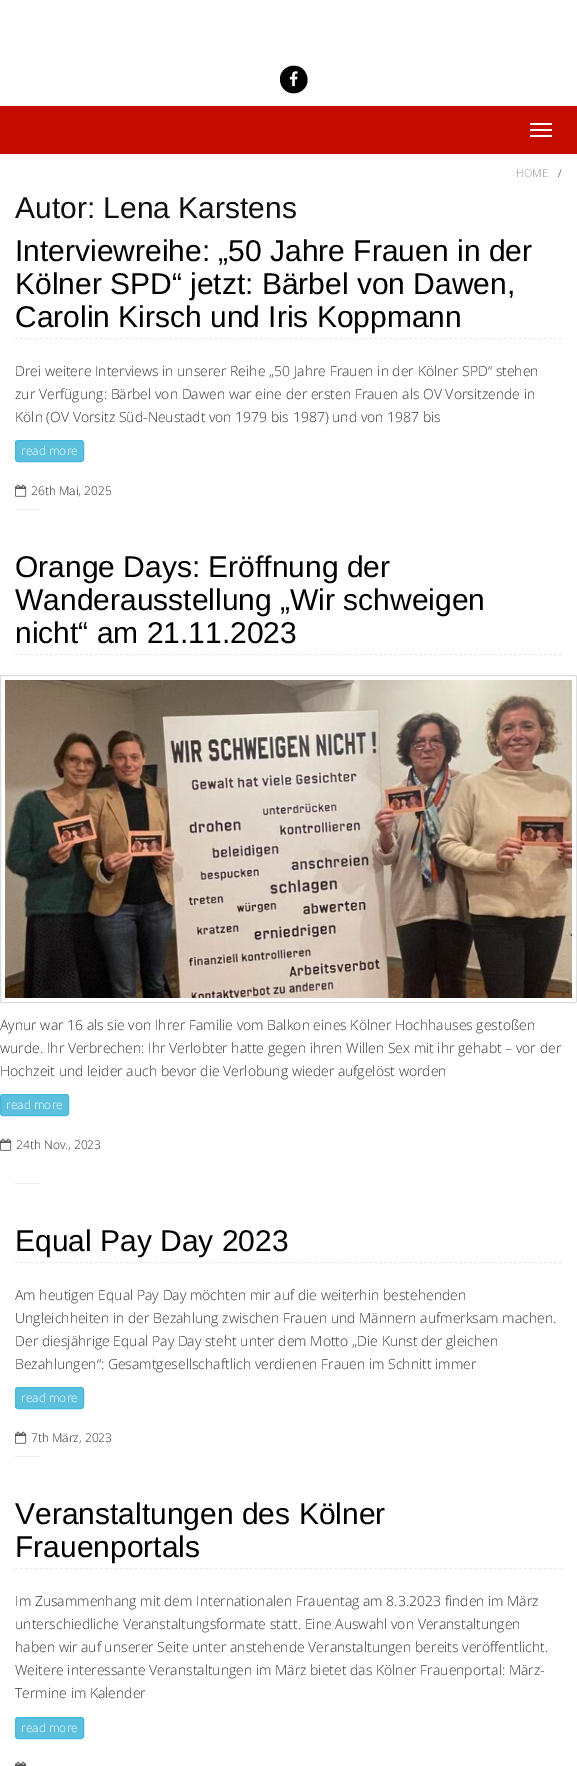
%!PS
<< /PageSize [577 1766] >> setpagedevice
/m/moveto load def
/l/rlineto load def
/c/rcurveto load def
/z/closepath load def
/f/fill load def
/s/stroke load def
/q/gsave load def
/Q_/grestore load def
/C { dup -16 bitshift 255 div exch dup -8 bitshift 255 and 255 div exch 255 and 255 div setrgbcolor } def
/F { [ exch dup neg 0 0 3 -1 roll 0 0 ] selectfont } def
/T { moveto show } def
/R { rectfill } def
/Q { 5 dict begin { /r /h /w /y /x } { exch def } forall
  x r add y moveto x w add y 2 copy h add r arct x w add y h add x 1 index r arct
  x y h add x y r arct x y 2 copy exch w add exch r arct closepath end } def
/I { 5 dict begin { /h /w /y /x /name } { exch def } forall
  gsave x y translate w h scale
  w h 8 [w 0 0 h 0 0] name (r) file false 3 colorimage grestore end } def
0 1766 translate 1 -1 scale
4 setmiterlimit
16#FFFFFF C
0 0 577 1766 R
16#000000 C
305.5 72.5 m 1.5 2.5 2 5.5 2 8 c -1 13.5 -19 17.5 -25.5 6 c -1.5 -2.5 -2 -5 -2 -8 c 1 -13.5 19 -17.5 25.5 -6 c z f
(1.rgb) 289 71 9 16 I
16#C40D00 C
0 106 577 48 R
16#FFFFFF C
530 123 22 2 1 Q f
530 129 22 2 1 Q f
530 135 22 2 1 Q f
/OpenSans-Light 11 F
16#999999 C
(HOME) 516 177 T
16#333333 C
(/) 558 177 T
/LiberationSans-Regular 30 F
16#111111 C
(Autor: Lena Karstens) 15 218 T
16#EEEEEE C
[3 1.99] 0 setdash
15 338.5 m 547 0 l s
16#000000 C
(Interviewreihe: „50 Jahre Frauen in der) 15 261 T
(Kölner SPD“ jetzt: Bärbel von Dawen,) 15 294 T
(Carolin Kirsch und Iris Koppmann) 15 327 T
/OpenSans-Light 14 F
16#333333 C
(Drei weitere Interviews in unserer Reihe „50 Jahre Frauen in der Kölner SPD“ stehen) 15 376 T
(zur Verfügung: Bärbel von Dawen war eine der ersten Frauen als OV Vorsitzende in) 15 399 T
(Köln \(OV Vorsitz Süd-Neustadt von 1979 bis 1987\) und von 1987 bis) 15 422 T
16#5BC0DE C
15.5 440.5 68 21 2.5 Q q f Q_
16#46B8DA C
[] 0 setdash
s
/OpenSans-Light 12 F
16#FFFFFF C
(read more) 21 455 T
(2.rgb) 15 484 12 13 I
16#333333 C
(26th Mai, 2025) 31 495 T
16#EEEEEE C
15 509 25 1 R
[3 1.99] 0 setdash
15 654.5 m 547 0 l s
/LiberationSans-Regular 30 F
16#000000 C
(Orange Days: Eröffnung der) 15 577 T
(Wanderausstellung „Wir schweigen) 15 610 T
(nicht“ am 21.11.2023) 15 643 T
16#DDDDDD C
[] 0 setdash
.5 675.5 576 327 1.5 Q s
(3.rgb) 5 680 567 318 I
/OpenSans-Light 14 F
16#333333 C
(Aynur war 16 als sie von Ihrer Familie vom Balkon eines Kölner Hochhauses gestoßen) 0 1030 T
(wurde. Ihr Verbrechen: Ihr Verlobter hatte gegen ihren Willen Sex mit ihr gehabt – vor der) 0 1053 T
(Hochzeit und leider auch bevor die Verlobung wieder aufgelöst worden) 0 1076 T
16#5BC0DE C
.5 1094.5 68 21 2.5 Q q f Q_
16#46B8DA C
s
/OpenSans-Light 12 F
16#FFFFFF C
(read more) 6 1109 T
(2.rgb) 0 1138 12 13 I
16#333333 C
(24th Nov., 2023) 16 1149 T
16#EEEEEE C
15 1183 25 1 R
[3 1.99] 0 setdash
15 1262.5 m 547 0 l s
/LiberationSans-Regular 30 F
16#000000 C
(Equal Pay Day 2023) 15 1251 T
/OpenSans-Light 14 F
16#333333 C
(Am heutigen Equal Pay Day möchten mir auf die weiterhin bestehenden) 15 1300 T
(Ungleichheiten in der Bezahlung zwischen Frauen und Männern aufmerksam machen.) 15 1323 T
(Der diesjährige Equal Pay Day steht unter dem Motto „Die Kunst der gleichen) 15 1346 T
(Bezahlungen“: Gesamtgesellschaftlich verdienen Frauen im Schnitt immer) 15 1369 T
16#5BC0DE C
15.5 1387.5 68 21 2.5 Q q f Q_
16#46B8DA C
[] 0 setdash
s
/OpenSans-Light 12 F
16#FFFFFF C
(read more) 21 1402 T
(2.rgb) 15 1431 12 13 I
16#333333 C
(7th März, 2023) 31 1442 T
16#EEEEEE C
15 1456 25 1 R
[3 1.99] 0 setdash
15 1568.5 m 547 0 l s
/LiberationSans-Regular 30 F
16#000000 C
(Veranstaltungen des Kölner) 15 1524 T
(Frauenportals) 15 1557 T
/OpenSans-Light 14 F
16#333333 C
(Im Zusammenhang mit dem Internationalen Frauentag am 8.3.2023 finden im März) 15 1606 T
(unterschiedliche Veranstaltungsformate statt. Eine Auswahl von Veranstaltungen) 15 1629 T
(haben wir auf unserer Seite unter anstehende Veranstaltungen bereits veröffentlicht.) 15 1652 T
(Weitere interessante Veranstaltungen im März bietet das Kölner Frauenportal: März-) 15 1675 T
(Termine im Kalender) 15 1698 T
16#5BC0DE C
15.5 1717.5 68 21 2.5 Q q f Q_
16#46B8DA C
[] 0 setdash
s
/OpenSans-Light 12 F
16#FFFFFF C
(read more) 21 1732 T
(4.rgb) 15 1761 12 5 I
showpage
